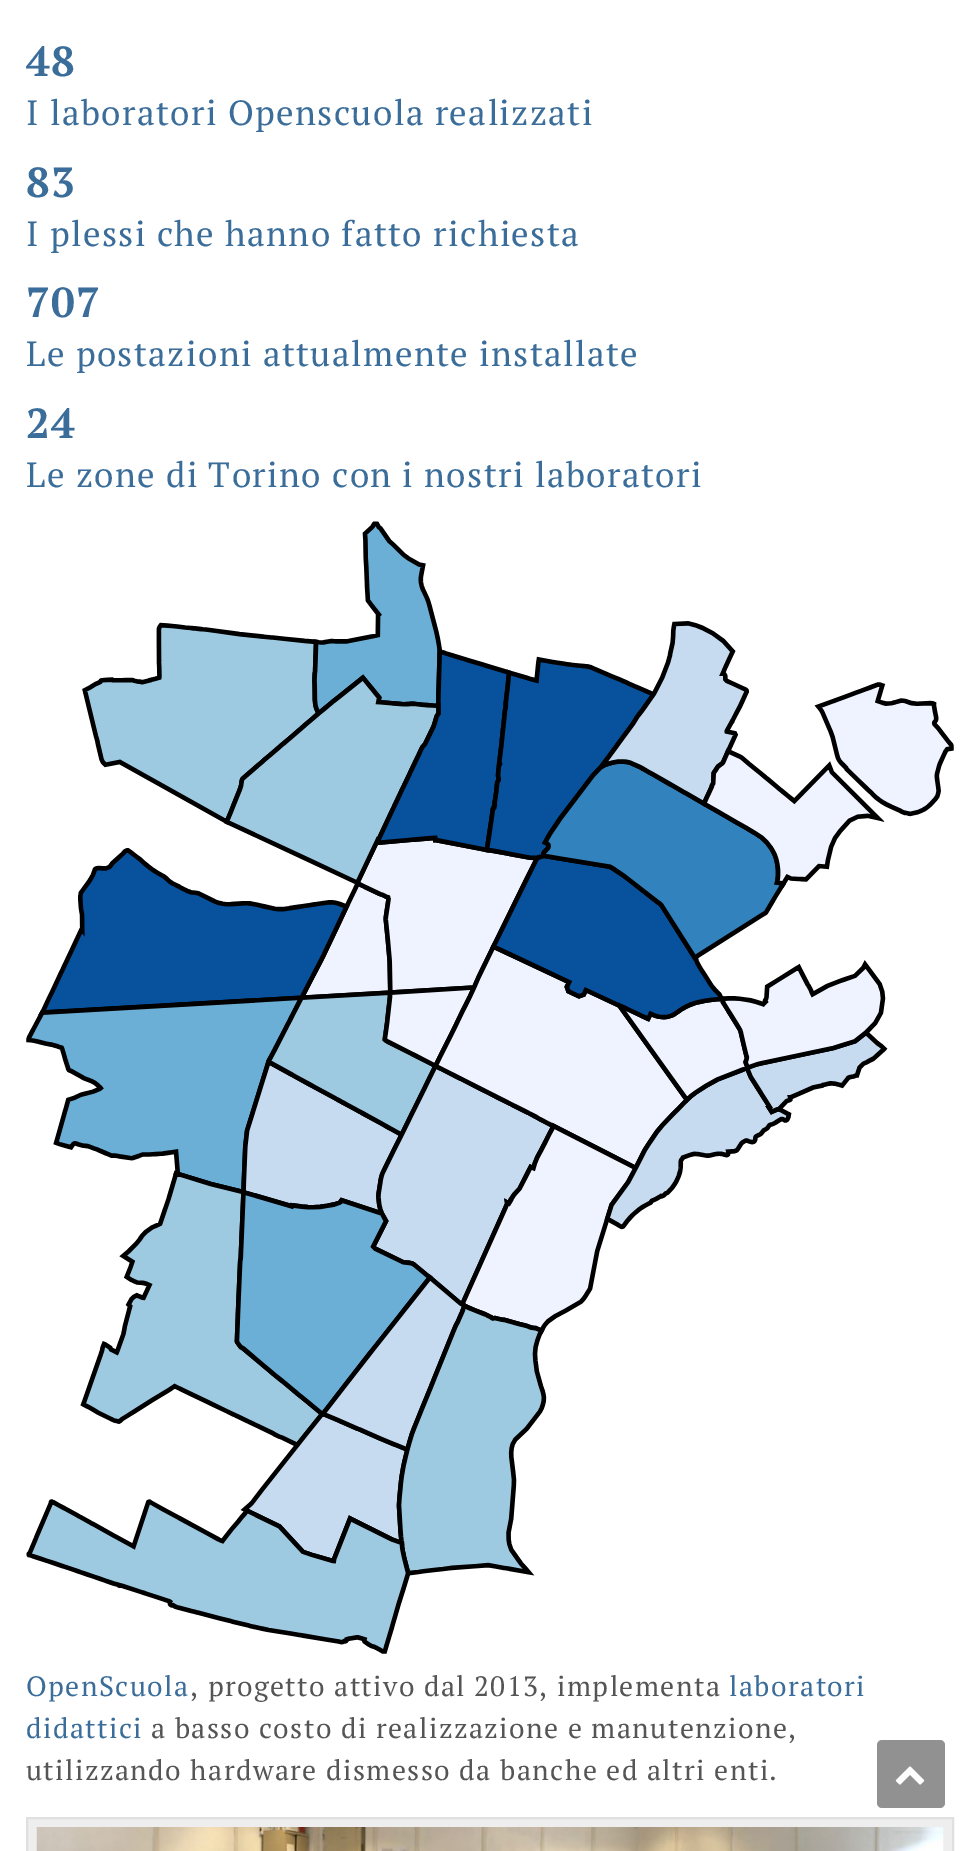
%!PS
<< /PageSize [979 1851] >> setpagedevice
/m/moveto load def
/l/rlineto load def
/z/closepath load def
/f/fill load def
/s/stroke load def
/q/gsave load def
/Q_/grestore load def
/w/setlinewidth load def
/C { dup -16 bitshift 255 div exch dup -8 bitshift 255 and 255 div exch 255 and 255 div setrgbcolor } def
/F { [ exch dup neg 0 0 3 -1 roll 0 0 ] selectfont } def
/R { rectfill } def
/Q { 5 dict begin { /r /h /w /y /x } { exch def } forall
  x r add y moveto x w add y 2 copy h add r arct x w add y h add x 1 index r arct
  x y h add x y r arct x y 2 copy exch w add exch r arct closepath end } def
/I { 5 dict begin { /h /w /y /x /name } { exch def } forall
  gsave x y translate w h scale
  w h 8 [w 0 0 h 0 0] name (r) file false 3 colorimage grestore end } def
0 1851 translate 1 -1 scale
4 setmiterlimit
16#FFFFFF C
0 0 979 1851 R
/PTSerif-Bold 42 F
16#3A6D99 C
26 76 m 1.4 0 (48) ashow
/PTSerif-Regular 35 F
26 125 m 1.4 0 (I laboratori Openscuola realizzati) ashow
/PTSerif-Bold 42 F
26 197 m 1.4 0 (83) ashow
/PTSerif-Regular 35 F
26 246 m 1.4 0 (I plessi che hanno fatto richiesta) ashow
/PTSerif-Bold 42 F
26 317 m 1.4 0 (707) ashow
/PTSerif-Regular 35 F
26 366 m 1.4 0 (Le postazioni attualmente installate) ashow
/PTSerif-Bold 42 F
26 438 m 1.4 0 (24) ashow
/PTSerif-Regular 35 F
26 487 m 1.4 0 (Le zone di Torino con i nostri laboratori) ashow
(1.rgb) 26 521 928 1133 I
/PTSerif-Regular 28 F
26 1696 m 1.4 0 (OpenScuola) ashow
16#555555 C
190 1696 m 1.4 0 (, progetto attivo dal 2013, implementa) ashow
16#3A6D99 C
729 1696 m 1.4 0 (laboratori) ashow
26 1738 m 1.4 0 (didattici) ashow
16#555555 C
151 1738 m 1.4 0 (a basso costo di realizzazione e manutenzione,) ashow
26 1780 m 1.4 0 (utilizzando hardware dismesso da banche ed altri enti.) ashow
16#EEEEEE C
27 1818 m 926 0 l 0 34 l -926 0 l z q f Q_
16#E0E0E0 C
2 w
s
(2.rgb) 36 1827 908 24 I
16#919191 C
877 1740 68 68 5 Q f
(3.rgb) 895 1766 30 19 I
showpage
